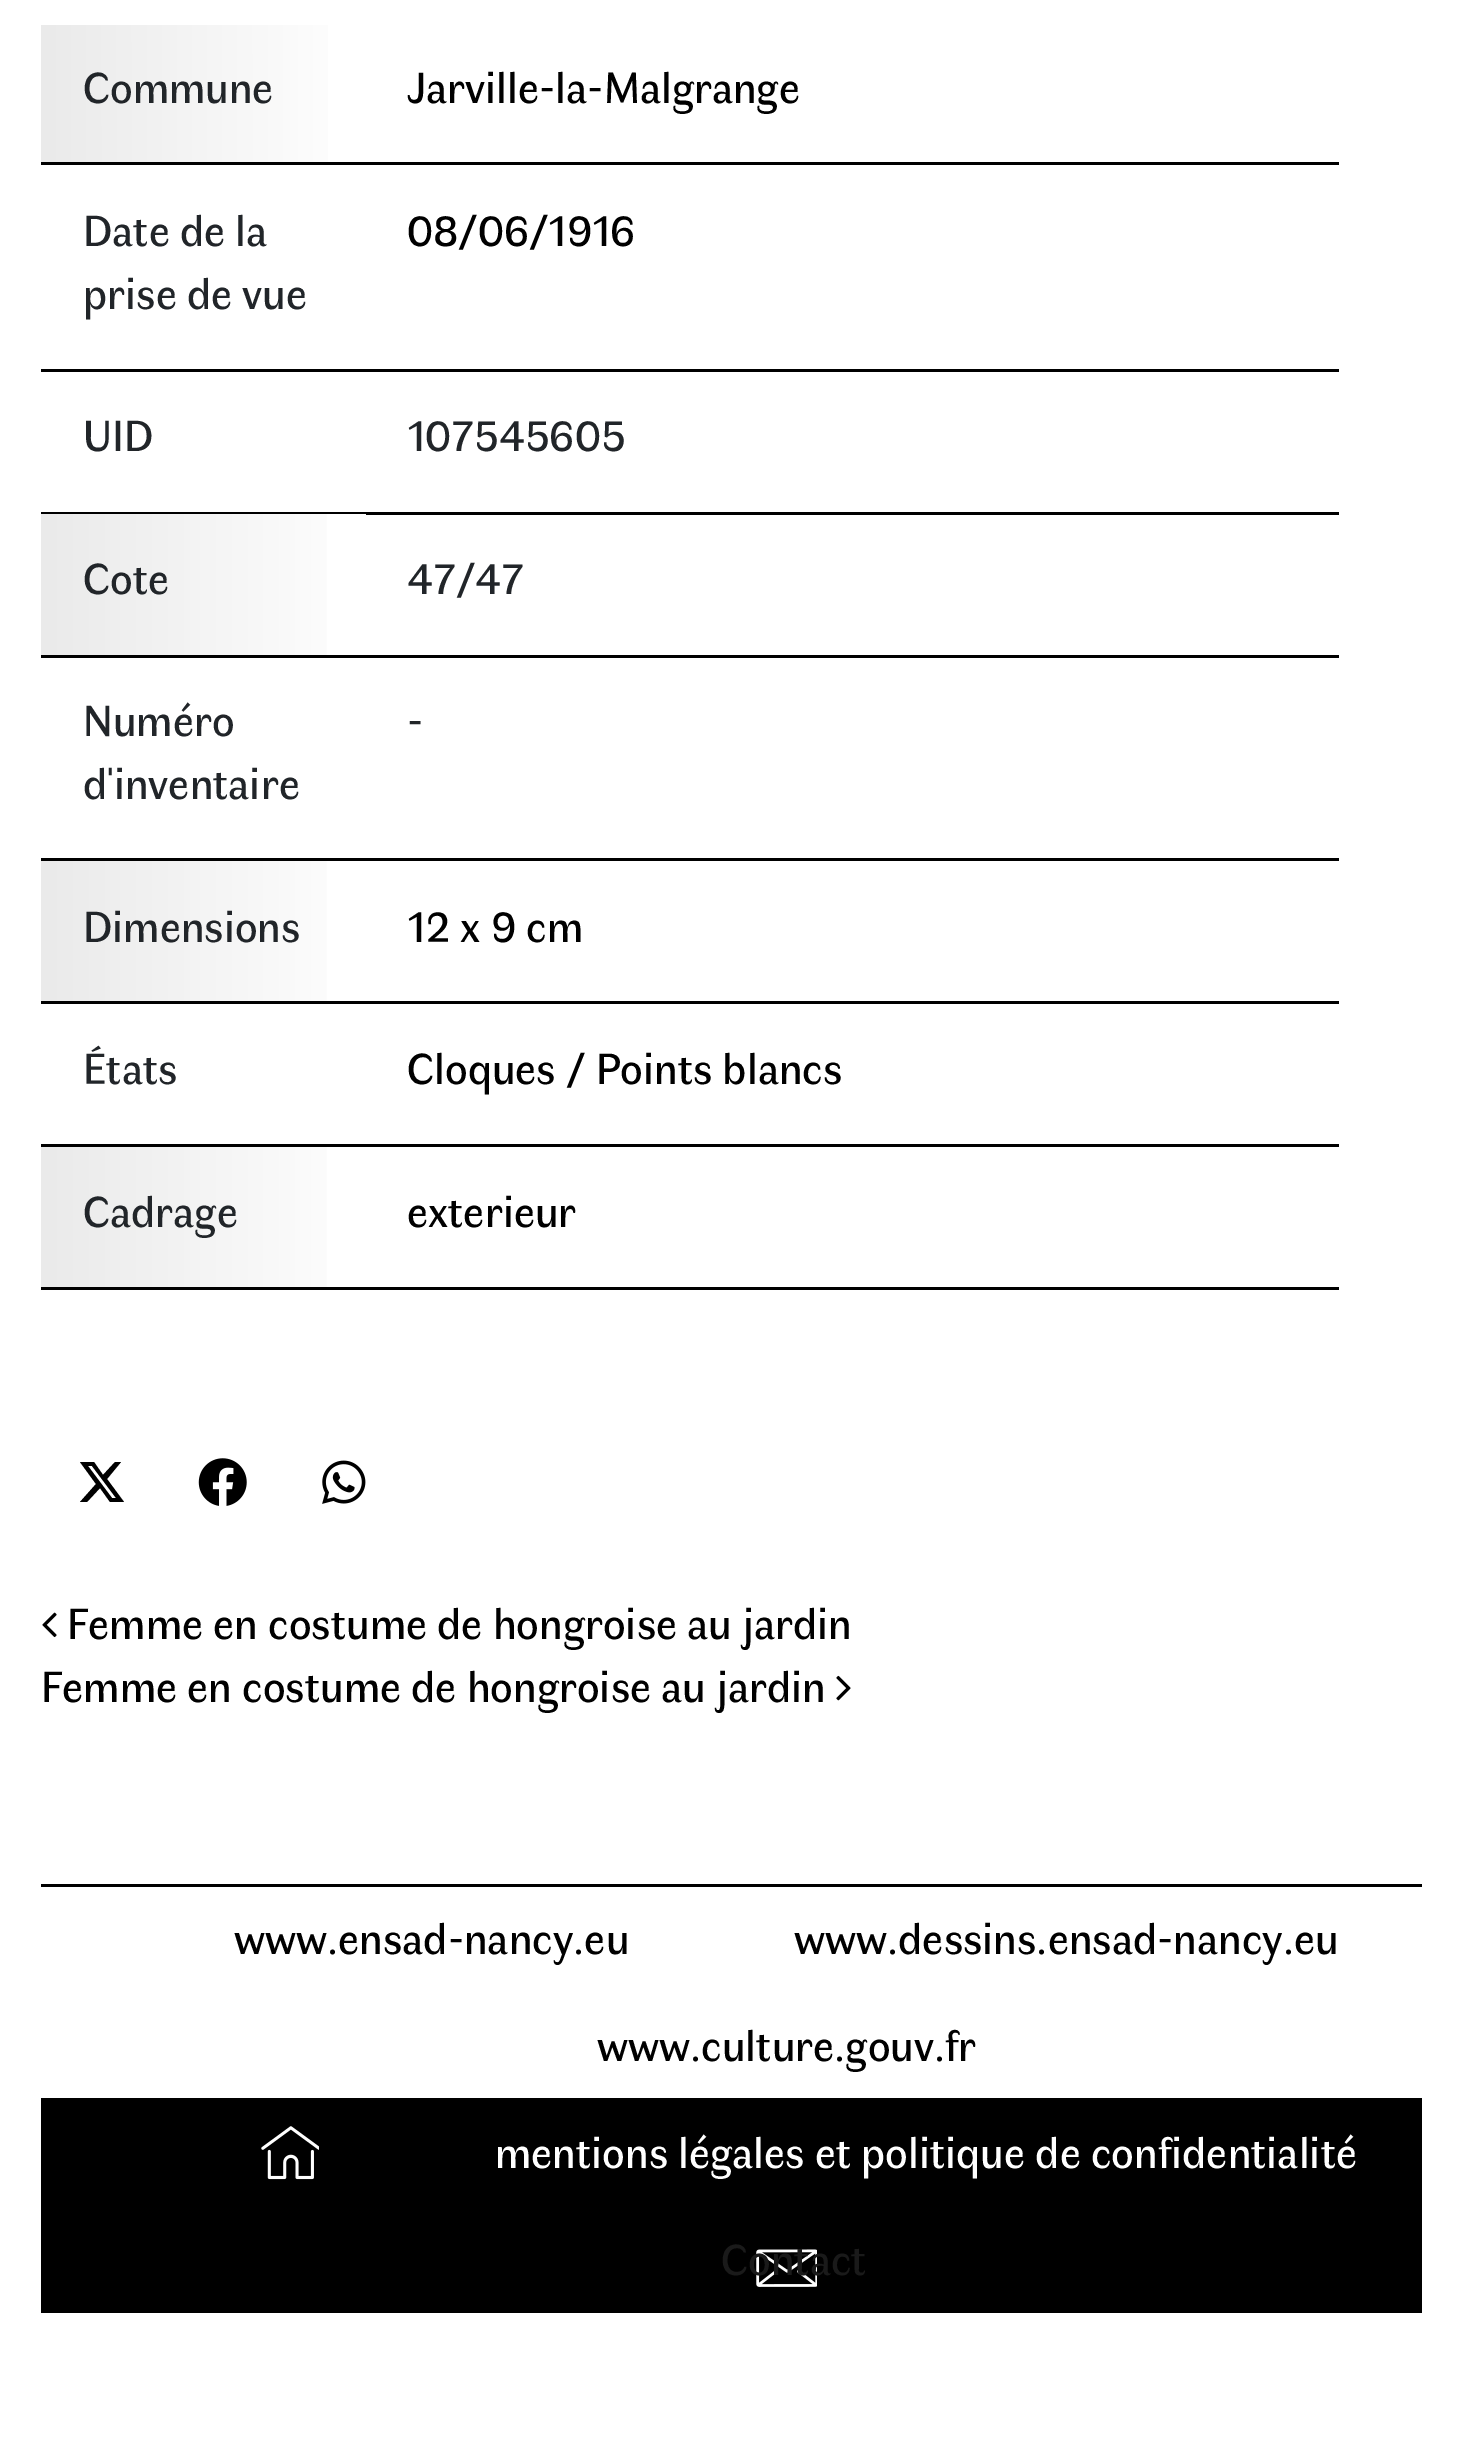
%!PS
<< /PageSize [1462 2437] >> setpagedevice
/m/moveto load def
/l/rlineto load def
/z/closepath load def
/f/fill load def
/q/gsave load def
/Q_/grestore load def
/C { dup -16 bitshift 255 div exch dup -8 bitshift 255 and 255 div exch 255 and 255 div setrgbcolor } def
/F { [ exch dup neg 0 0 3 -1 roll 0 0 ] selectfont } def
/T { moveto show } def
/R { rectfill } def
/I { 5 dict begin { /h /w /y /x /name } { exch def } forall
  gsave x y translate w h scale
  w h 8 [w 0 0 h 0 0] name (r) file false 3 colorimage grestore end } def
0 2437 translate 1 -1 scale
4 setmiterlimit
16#FFFFFF C
0 0 1462 2437 R
q 41 25 m 287 0 l 0 137 l -287 0 l z clip newpath
<< /ShadingType 2 /ColorSpace /DeviceRGB /Coords [41 94 366 93] /Extend [true true] /Function << /FunctionType 2 /Domain [0 1] /C0 [.918 .918 .918] /C1 [1 1 1] /N 1 >> >> shfill Q_
16#000000 C
41 162 1298 3 R
/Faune-Regular 44 F
16#212529 C
(Commune) 83 103 T
16#000000 C
(Jarville-la-Malgrange) 407 103 T
41 369 1298 3 R
16#212529 C
(Date de la) 83 246 T
(prise de vue) 83 309 T
16#000000 C
(08/06/1916) 407 246 T
41 512 325 2 R
16#212529 C
(UID) 83 451 T
16#000000 C
366 512 973 3 R
16#212529 C
(107545605) 407 451 T
q 41 514 m 286 0 l 0 141 l -286 0 l z clip newpath
<< /ShadingType 2 /ColorSpace /DeviceRGB /Coords [41 584 366 584] /Extend [true true] /Function << /FunctionType 2 /Domain [0 1] /C0 [.918 .918 .918] /C1 [1 1 1] /N 1 >> >> shfill Q_
16#000000 C
41 655 1298 3 R
16#212529 C
(Cote) 83 594 T
(47/47) 407 594 T
16#000000 C
41 858 1298 3 R
16#212529 C
(Numéro) 83 736 T
(d'inventaire) 83 799 T
(-) 407 736 T
q 41 861 m 286 0 l 0 140 l -286 0 l z clip newpath
<< /ShadingType 2 /ColorSpace /DeviceRGB /Coords [41 931 366 931] /Extend [true true] /Function << /FunctionType 2 /Domain [0 1] /C0 [.918 .918 .918] /C1 [1 1 1] /N 1 >> >> shfill Q_
16#000000 C
41 1001 1298 3 R
16#212529 C
(Dimensions) 83 942 T
16#000000 C
(12 x 9 cm) 407 942 T
41 1144 1298 3 R
16#212529 C
(États) 83 1084 T
16#000000 C
(Cloques / Points blancs) 407 1084 T
q 41 1147 m 286 0 l 0 140 l -286 0 l z clip newpath
<< /ShadingType 2 /ColorSpace /DeviceRGB /Coords [41 1217 366 1217] /Extend [true true] /Function << /FunctionType 2 /Domain [0 1] /C0 [.918 .918 .918] /C1 [1 1 1] /N 1 >> >> shfill Q_
41 1287 1298 3 R
16#212529 C
(Cadrage) 83 1227 T
16#000000 C
(exterieur) 407 1227 T
115 1462 m 6 0 l -14 17 l 17 23 l -14 0 l -10 -14 l -13 14 l -7 0 l 16 -18 l -16 -22 l 14 0 l 9 13 l z 112 1498 m 4 0 l -24 -32 l -4 0 l z f
(1.rgb) 198 1458 49 48 I
(2.rgb) 322 1460 44 44 I
(3.rgb) 42 1612 15 26 I
(Femme en costume de hongroise au jardin) 67 1639 T
(Femme en costume de hongroise au jardin) 41 1702 T
(4.rgb) 836 1675 15 26 I
41 1884 1381 3 R
(www.ensad-nancy.eu) 234 1954 T
(www.dessins.ensad-nancy.eu) 794 1954 T
(www.culture.gouv.fr) 597 2061 T
41 2098 1381 215 R
(5.rgb) 261 2126 58 54 I
16#FFFFFF C
(mentions légales et politique de confidentialité) 495 2168 T
(6.rgb) 756 2249 61 38 I
16#1A1A1A C
(Contact) 721 2275 T
showpage
